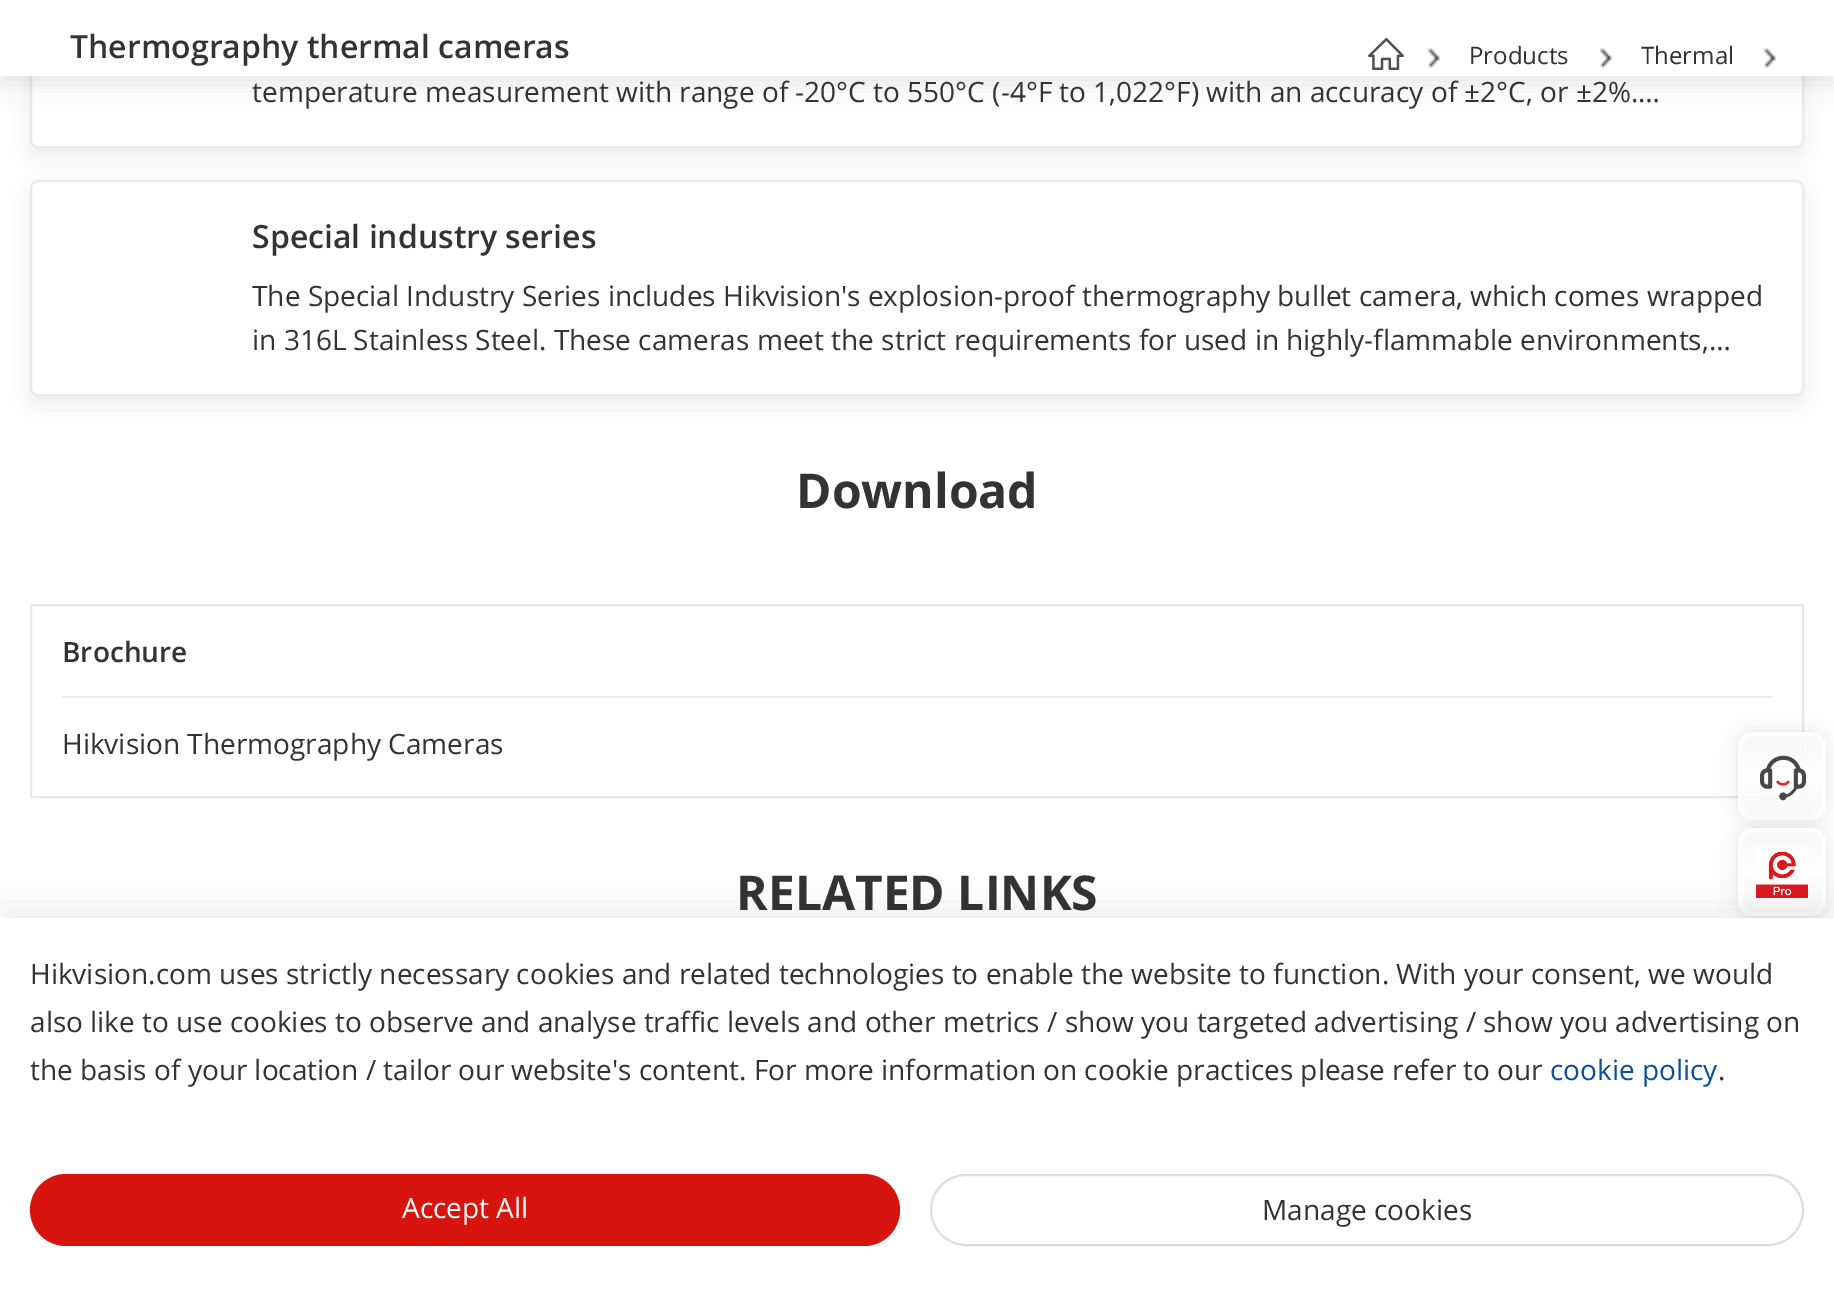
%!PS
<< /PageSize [1834 1307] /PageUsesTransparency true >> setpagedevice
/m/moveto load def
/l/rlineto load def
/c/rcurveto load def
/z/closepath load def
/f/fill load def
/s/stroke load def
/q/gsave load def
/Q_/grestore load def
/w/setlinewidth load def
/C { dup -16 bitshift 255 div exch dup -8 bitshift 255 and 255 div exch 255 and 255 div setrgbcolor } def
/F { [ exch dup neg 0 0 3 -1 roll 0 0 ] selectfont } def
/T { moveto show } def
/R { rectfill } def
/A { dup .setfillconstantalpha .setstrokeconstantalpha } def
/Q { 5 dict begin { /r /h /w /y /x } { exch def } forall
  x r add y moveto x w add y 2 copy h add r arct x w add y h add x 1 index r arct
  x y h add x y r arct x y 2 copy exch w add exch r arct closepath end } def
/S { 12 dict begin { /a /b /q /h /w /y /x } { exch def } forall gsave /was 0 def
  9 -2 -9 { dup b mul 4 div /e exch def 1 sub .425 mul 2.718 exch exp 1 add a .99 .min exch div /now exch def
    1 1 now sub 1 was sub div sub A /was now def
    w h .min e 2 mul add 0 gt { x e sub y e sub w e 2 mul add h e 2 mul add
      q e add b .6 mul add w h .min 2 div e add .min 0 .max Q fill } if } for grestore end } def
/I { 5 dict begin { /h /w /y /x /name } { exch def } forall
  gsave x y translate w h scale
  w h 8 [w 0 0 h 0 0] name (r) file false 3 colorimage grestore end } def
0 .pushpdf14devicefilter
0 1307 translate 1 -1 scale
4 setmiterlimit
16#FFFFFF C
0 0 1834 1307 R
16#000000 C
30 -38 1774 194 8 10 .07 S
16#FFFFFF C
31 -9 1772 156 7 Q q f Q_
16#EAEAEA C
2 w
s
16#000000 C
0 8 1834 76 0 12 .1 S
16#FFFFFF C
0 0 1834 76 R
/OpenSans-SemiBold 32 F
16#333333 C
(Thermography thermal cameras) 70 58 T
(1.rgb) 1368 38 36 33 I
(2.rgb) 1428 48 12 20 I
/OpenSans-Regular 24 F
(Products) 1469 64 T
(2.rgb) 1600 48 12 20 I
(Thermal) 1641 64 T
(2.rgb) 1764 48 12 20 I
/OpenSans-Regular 28 F
(temperature measurement with range of -20°C to 550°C \(-4°F to 1,022°F\) with an accuracy of ±2°C, or ±2%.…) 252 102 T
16#000000 C
30 188 1774 216 8 10 .07 S
16#FFFFFF C
31 181 1772 214 7 Q q f Q_
16#EAEAEA C
s
/OpenSans-SemiBold 32 F
16#333333 C
(Special industry series) 252 248 T
/OpenSans-Regular 28 F
(The Special Industry Series includes Hikvision's explosion-proof thermography bullet camera, which comes wrapped) 252 306 T
(in 316L Stainless Steel. These cameras meet the strict requirements for used in highly-flammable environments,…) 252 350 T
/OpenSans-Bold 48 F
(Download) 796 508 T
16#EAEAEA C
31 605 1772 192 rectstroke
/OpenSans-SemiBold 28 F
16#333333 C
(Brochure) 62 662 T
16#EAEAEA C
62 696 1710 2 R
/OpenSans-Regular 28 F
16#333333 C
(Hikvision Thermography Cameras) 62 754 T
/OpenSans-Bold 48 F
(RELATED LINKS) 736 910 T
q
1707 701 m 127 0 l 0 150 l -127 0 l z 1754 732 m 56 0 l 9 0 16 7 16 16 c 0 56 l 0 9 -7 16 -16 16 c -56 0 l -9 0 -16 -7 -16 -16 c 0 -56 l 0 -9 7 -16 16 -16 c z eoclip newpath
16#000000 C
1738 732 88 88 16 10 .11 S
Q_
q
1738 732 88 88 16 Q clip newpath
0.9 A
q 1738 732 m 88 0 l 0 4 l -88 0 l z clip newpath
<< /ShadingType 2 /ColorSpace /DeviceRGB /Coords [1782 656 1782 736] /Extend [true true] /Function << /FunctionType 3 /Domain [0 1] /Functions [<< /FunctionType 2 /Domain [0 1] /C0 [.973 .973 .973] /C1 [1 1 1] /N 1 >> << /FunctionType 2 /Domain [0 1] /C0 [1 1 1] /C1 [.973 .973 .973] /N 1 >>] /Bounds [.51] /Encode [0 1 0 1] >> >> shfill Q_
q 1738 736 m 88 0 l 0 80 l -88 0 l z clip newpath
<< /ShadingType 2 /ColorSpace /DeviceRGB /Coords [1782 736 1782 816] /Extend [true true] /Function << /FunctionType 3 /Domain [0 1] /Functions [<< /FunctionType 2 /Domain [0 1] /C0 [.973 .973 .973] /C1 [1 1 1] /N 1 >> << /FunctionType 2 /Domain [0 1] /C0 [1 1 1] /C1 [.973 .973 .973] /N 1 >>] /Bounds [.51] /Encode [0 1 0 1] >> >> shfill Q_
1 A
q 1738 816 m 88 0 l 0 4 l -88 0 l z clip newpath
<< /ShadingType 2 /ColorSpace /DeviceRGB /Coords [1782 816 1782 896] /Extend [true true] /Function << /FunctionType 3 /Domain [0 1] /Functions [<< /FunctionType 2 /Domain [0 1] /C0 [.976 .976 .976] /C1 [1 1 1] /N 1 >> << /FunctionType 2 /Domain [0 1] /C0 [1 1 1] /C1 [.976 .976 .976] /N 1 >>] /Bounds [.51] /Encode [0 1 0 1] >> >> shfill Q_
Q_
0.9 A
16#FFFFFF C
4 w
1740 734 84 84 14 Q s
1 A
(3.rgb) 1760 755 46 46 I
q
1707 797 m 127 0 l 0 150 l -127 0 l z 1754 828 m 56 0 l 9 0 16 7 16 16 c 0 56 l 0 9 -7 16 -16 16 c -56 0 l -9 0 -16 -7 -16 -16 c 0 -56 l 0 -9 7 -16 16 -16 c z eoclip newpath
16#000000 C
1738 828 88 88 16 10 .11 S
Q_
q
1738 828 88 88 16 Q clip newpath
0.9 A
q 1738 828 m 88 0 l 0 4 l -88 0 l z clip newpath
<< /ShadingType 2 /ColorSpace /DeviceRGB /Coords [1782 752 1782 832] /Extend [true true] /Function << /FunctionType 3 /Domain [0 1] /Functions [<< /FunctionType 2 /Domain [0 1] /C0 [.973 .973 .973] /C1 [1 1 1] /N 1 >> << /FunctionType 2 /Domain [0 1] /C0 [1 1 1] /C1 [.973 .973 .973] /N 1 >>] /Bounds [.51] /Encode [0 1 0 1] >> >> shfill Q_
q 1738 832 m 88 0 l 0 80 l -88 0 l z clip newpath
<< /ShadingType 2 /ColorSpace /DeviceRGB /Coords [1782 832 1782 912] /Extend [true true] /Function << /FunctionType 3 /Domain [0 1] /Functions [<< /FunctionType 2 /Domain [0 1] /C0 [.973 .973 .973] /C1 [1 1 1] /N 1 >> << /FunctionType 2 /Domain [0 1] /C0 [1 1 1] /C1 [.973 .973 .973] /N 1 >>] /Bounds [.51] /Encode [0 1 0 1] >> >> shfill Q_
1 A
q 1738 912 m 88 0 l 0 4 l -88 0 l z clip newpath
<< /ShadingType 2 /ColorSpace /DeviceRGB /Coords [1782 912 1782 992] /Extend [true true] /Function << /FunctionType 3 /Domain [0 1] /Functions [<< /FunctionType 2 /Domain [0 1] /C0 [.976 .976 .976] /C1 [1 1 1] /N 1 >> << /FunctionType 2 /Domain [0 1] /C0 [1 1 1] /C1 [.976 .976 .976] /N 1 >>] /Bounds [.51] /Encode [0 1 0 1] >> >> shfill Q_
Q_
0.9 A
1740 830 84 84 14 Q s
1 A
(4.rgb) 1756 846 52 52 I
16#000000 C
1738 924 88 88 16 10 .11 S
0 904 1834 390 0 16 .05 S
16#FFFFFF C
0 918 1834 389 R
/OpenSans-Regular 28 F
16#333333 C
(Hikvision.com uses strictly necessary cookies and related technologies to enable the website to function. With your consent, we would) 30 984 T
(also like to use cookies to observe and analyse traffic levels and other metrics / show you targeted advertising / show you advertising on) 30 1032 T
(the basis of your location / tailor our website's content. For more information on cookie practices please refer to our) 30 1080 T
16#094F9C C
(cookie policy) 1550 1080 T
16#333333 C
(.) 1718 1080 T
16#D7150E C
30 1174 870 72 36 Q f
16#FFFFFF C
(Accept All) 402 1218 T
16#DDDDDD C
2 w
931 1175 872 70 35 Q s
16#333333 C
(Manage cookies) 1262 1220 T
.poppdf14devicefilter showpage
